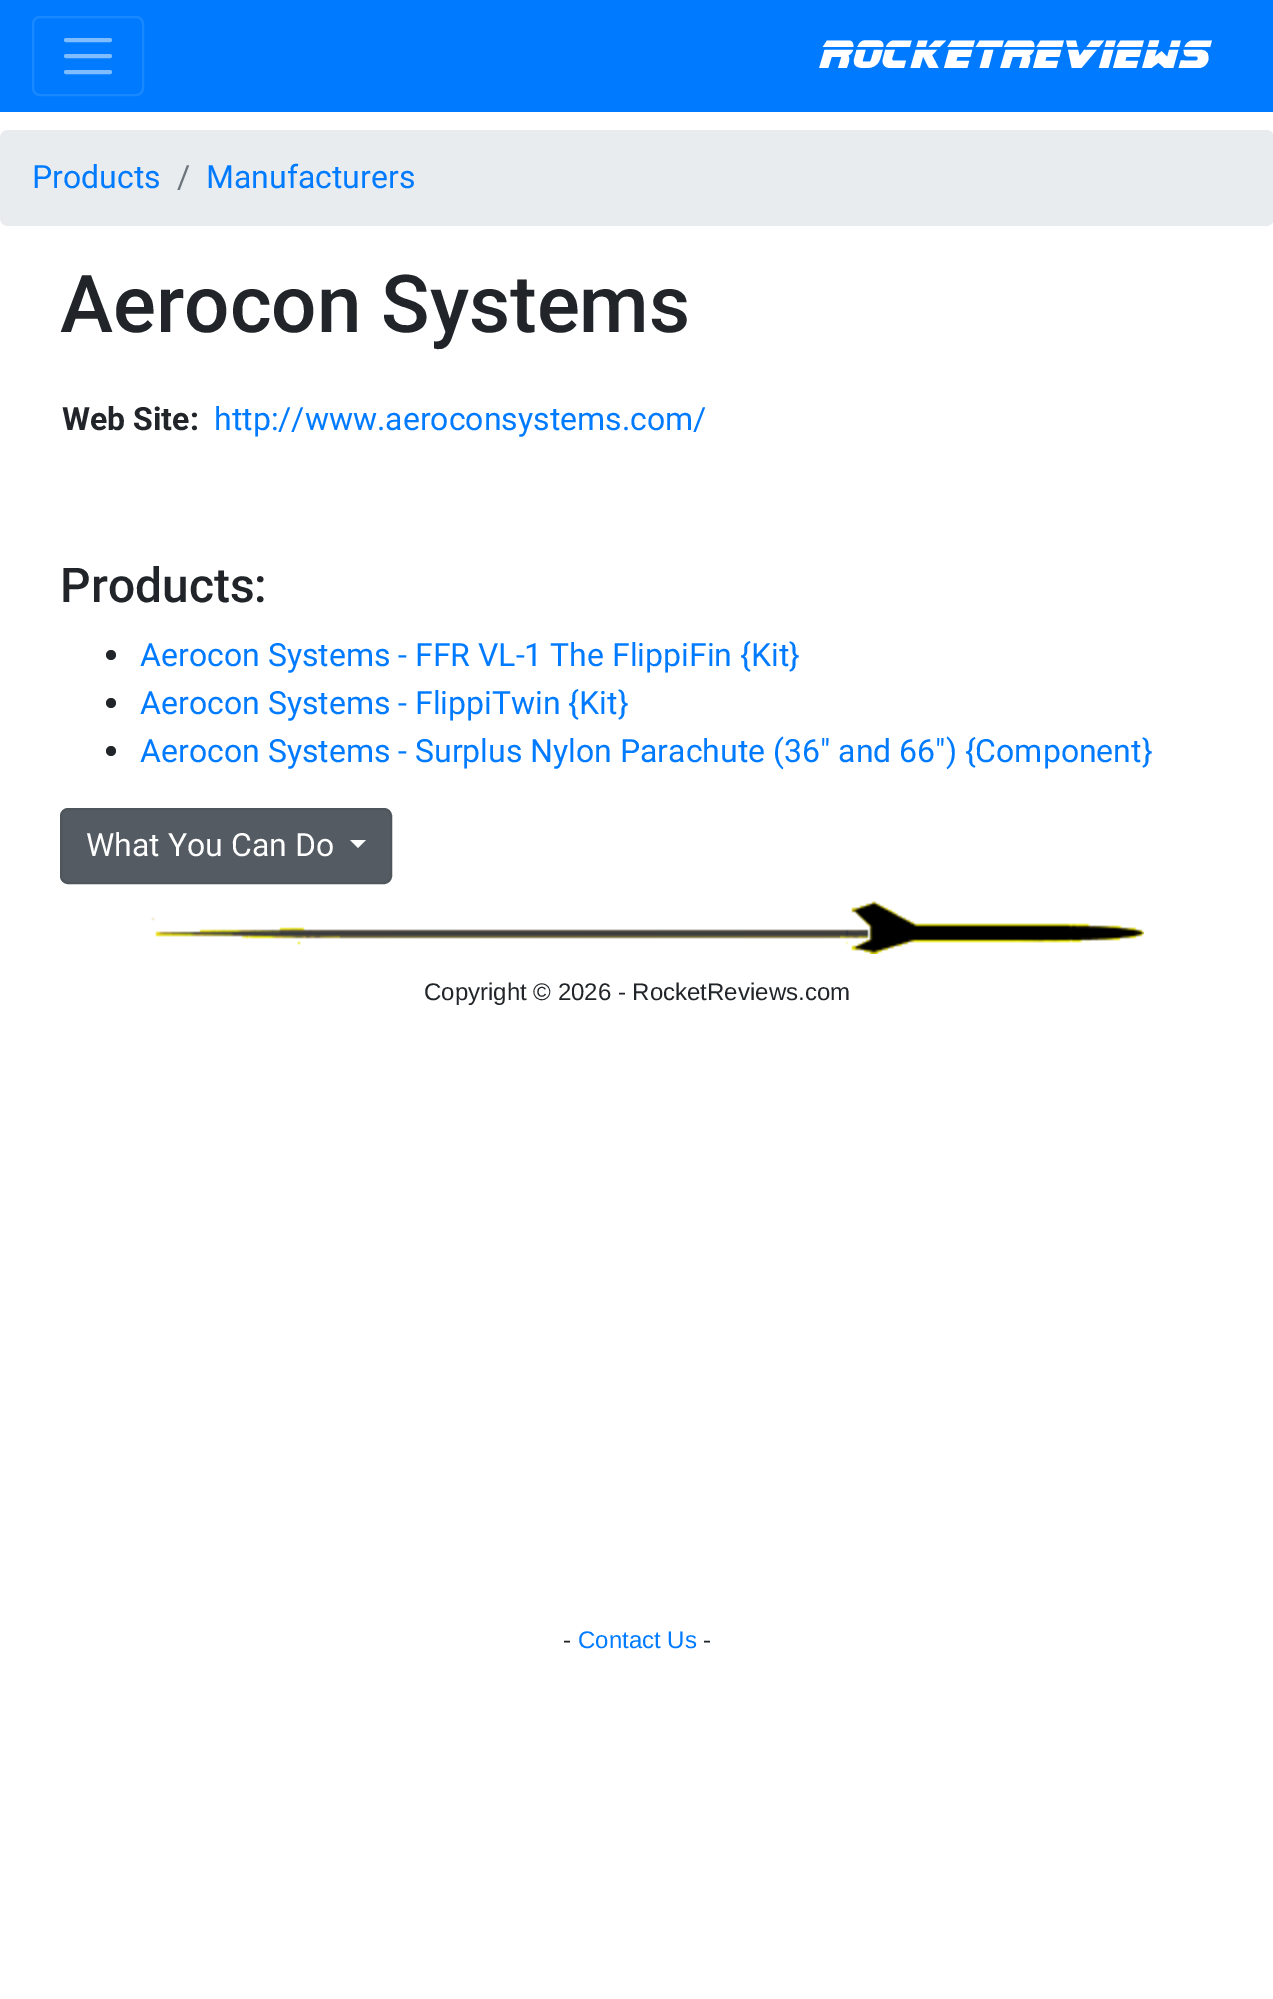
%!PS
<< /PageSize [1273 1999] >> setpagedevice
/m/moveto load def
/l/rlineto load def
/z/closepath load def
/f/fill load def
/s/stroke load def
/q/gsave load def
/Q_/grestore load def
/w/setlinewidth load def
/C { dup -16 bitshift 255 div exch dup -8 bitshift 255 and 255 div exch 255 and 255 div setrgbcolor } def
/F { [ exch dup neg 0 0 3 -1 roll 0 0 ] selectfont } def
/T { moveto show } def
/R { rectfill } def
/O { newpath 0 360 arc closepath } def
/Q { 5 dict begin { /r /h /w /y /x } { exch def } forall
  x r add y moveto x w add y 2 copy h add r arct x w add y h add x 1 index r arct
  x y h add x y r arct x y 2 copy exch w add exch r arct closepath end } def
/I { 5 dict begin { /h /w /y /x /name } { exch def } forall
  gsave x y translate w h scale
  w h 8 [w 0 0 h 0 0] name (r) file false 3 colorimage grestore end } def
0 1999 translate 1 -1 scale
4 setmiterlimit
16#FFFFFF C
0 0 1273 1999 R
16#007BFF C
0 0 1273 112 R
16#1A88FF C
2 w
33 17 110 78 7 Q s
16#80BDFF C
4 w
1 setlinecap
66 40 m 44 0 l 66 56 m 44 0 l 66 72 m 44 0 l s
/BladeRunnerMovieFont-BoldItalic 40 F
16#FFFFFF C
(RocketReviews) 820 68 T
16#E9ECEF C
0 130 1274 96 8 Q f
/Roboto-Regular 32 F
16#007BFF C
(Products) 32 188 T
16#6C757D C
(/) 177 188 T
16#007BFF C
(Manufacturers) 206 188 T
/Roboto-Medium 80 F
16#212529 C
(Aerocon Systems) 60 332 T
/Roboto-Bold 32 F
(Web Site:) 62 430 T
/Roboto-Regular 32 F
16#007BFF C
(http://www.aeroconsystems.com/) 214 430 T
/Roboto-Medium 48 F
16#212529 C
(Products:) 60 602 T
111 655 5 O f
/Roboto-Regular 32 F
16#007BFF C
(Aerocon Systems - FFR VL-1 The FlippiFin {Kit}) 140 666 T
16#212529 C
111 703 5 O f
16#007BFF C
(Aerocon Systems - FlippiTwin {Kit}) 140 714 T
16#212529 C
111 751 5 O f
16#007BFF C
(Aerocon Systems - Surplus Nylon Parachute \(36" and 66"\) {Component}) 140 762 T
16#545B62 C
61 809 330 74 7 Q q f Q_
16#4E555B C
2 w
0 setlinecap
s
16#FFFFFF C
(What You Can Do) 86 856 T
350 840 m 16 0 l -8 8 l z f
(1.rgb) 340 929 500 10 I
(2.rgb) 130 917 210 28 I
(3.rgb) 840 901 304 53 I
/LiberationSans-Regular 24 F
16#212529 C
(Copyright © 2026 - RocketReviews.com) 424 1000 T
(-) 563 1648 T
16#007BFF C
(Contact Us) 578 1648 T
16#212529 C
(-) 703 1648 T
showpage
